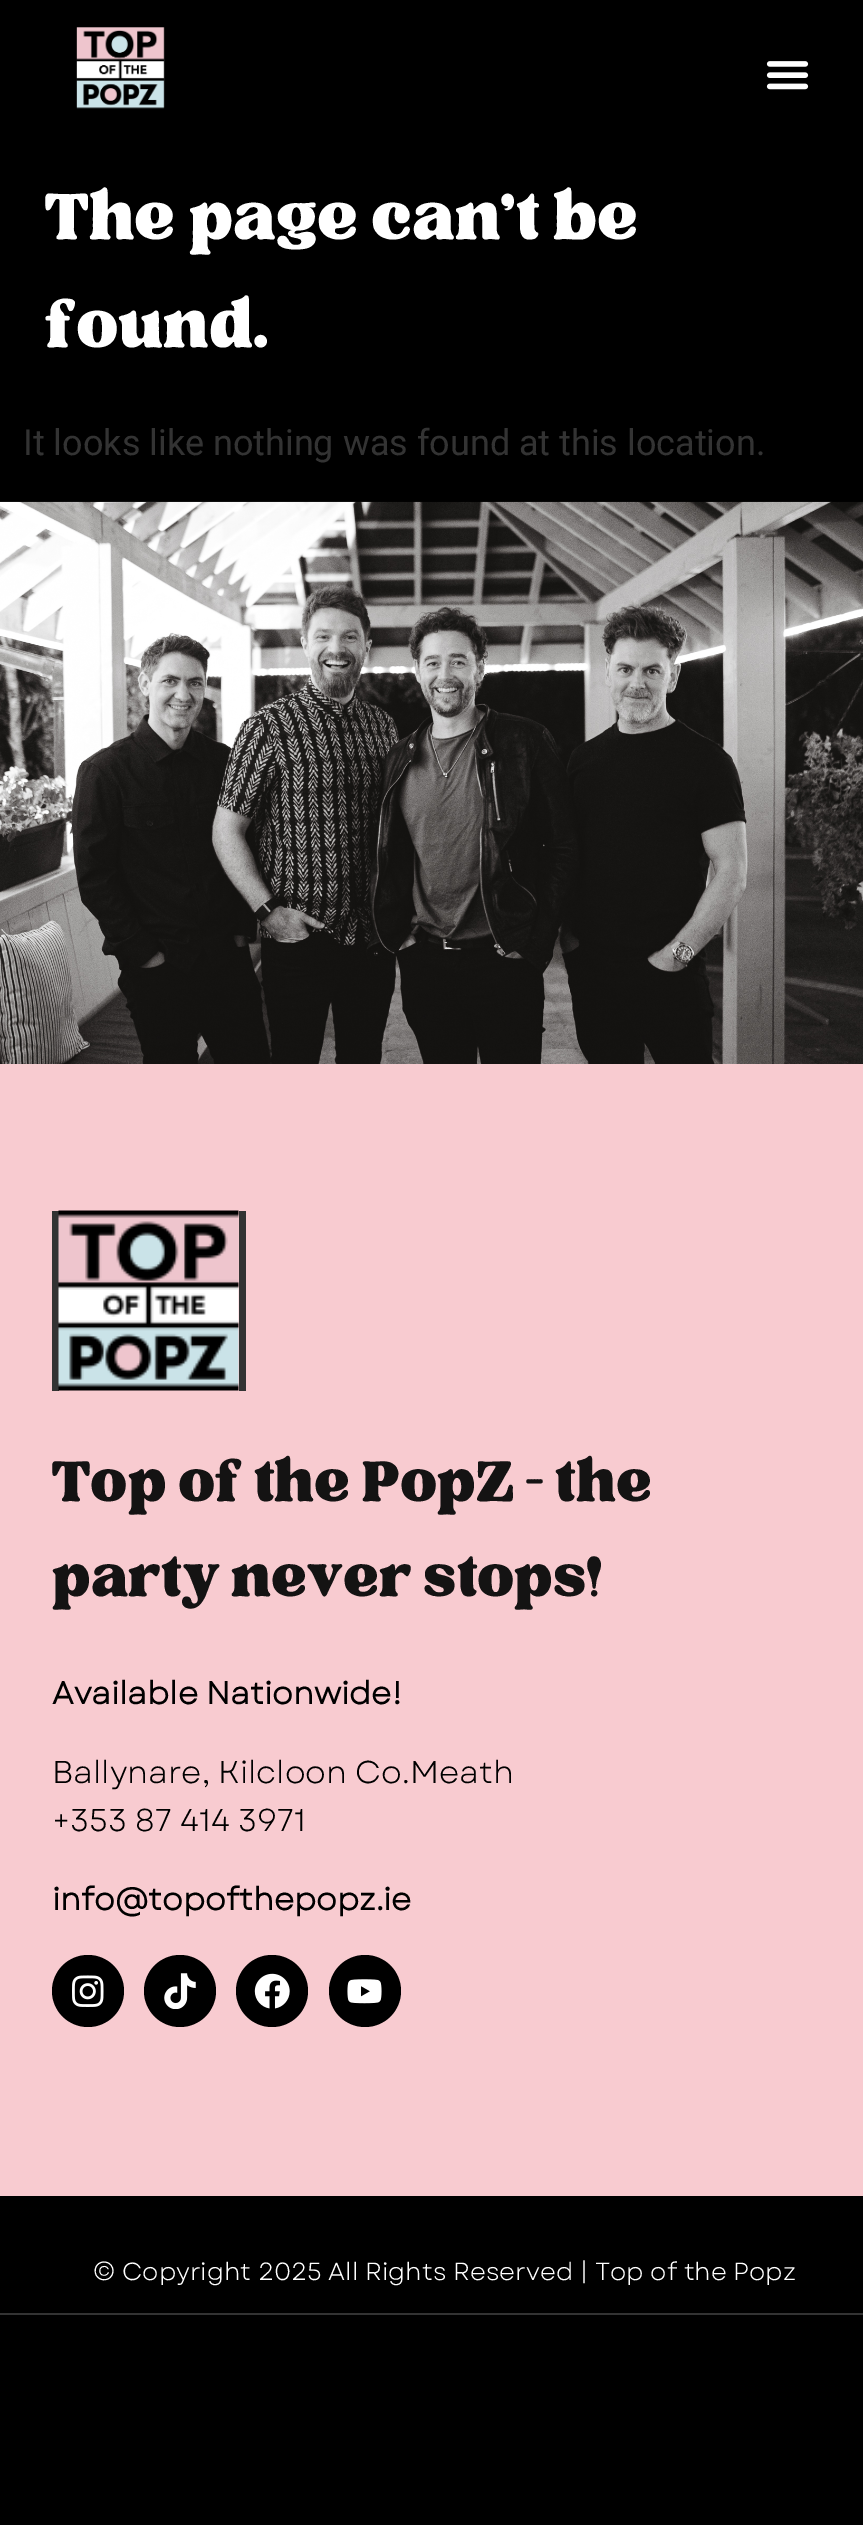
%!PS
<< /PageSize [863 2525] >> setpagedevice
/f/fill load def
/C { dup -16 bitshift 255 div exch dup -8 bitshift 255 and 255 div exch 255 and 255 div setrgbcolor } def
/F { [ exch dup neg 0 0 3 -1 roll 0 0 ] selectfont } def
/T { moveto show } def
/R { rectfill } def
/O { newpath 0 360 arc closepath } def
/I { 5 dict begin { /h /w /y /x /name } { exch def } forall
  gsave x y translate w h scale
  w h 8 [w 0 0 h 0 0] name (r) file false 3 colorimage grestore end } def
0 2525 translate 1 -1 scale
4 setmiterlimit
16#000000 C
0 0 863 2525 R
(1.rgb) 76 27 89 82 I
(2.rgb) 766 61 43 29 I
/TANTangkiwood-Regular 90 F
16#FFFFFF C
(The page can’t be) 45 239 T
(found.) 45 347 T
/Roboto-Regular 36 F
16#333333 C
(It looks like nothing was found at this location.) 23 455 T
(3.rgb) 0 501 863 563 I
16#F8CBD0 C
0 1064 863 1132 R
16#333333 C
239 1211 7 180 R
52 1211 7 180 R
(4.rgb) 58 1210 181 181 I
/TANTangkiwood-Regular 78.75 F
16#141313 C
(Top of the PopZ – the) 52 1501 T
(party never stops!) 52 1596 T
/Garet-Bold 31.5 F
16#000000 C
(Available Nationwide!) 52 1704 T
/Garet-Regular 31.5 F
(Ballynare, Kilcloon Co.Meath) 52 1783 T
(+353 87 414 3971) 52 1831 T
/Garet-Bold 31.5 F
(info@topofthepopz.ie) 52 1910 T
88 1991 36 O f
(5.rgb) 72 1975 32 32 I
180 1991 36 O f
(6.rgb) 164 1973 32 36 I
272 1991 36 O f
(7.rgb) 254 1973 36 36 I
365 1991 36 O f
(8.rgb) 347 1979 35 25 I
16#333333 C
0 2313 863 2 R
/Garet-Regular 24.75 F
16#FFFFFF C
(© Copyright 2025 All Rights Reserved | Top of the Popz) 93 2280 T
showpage
